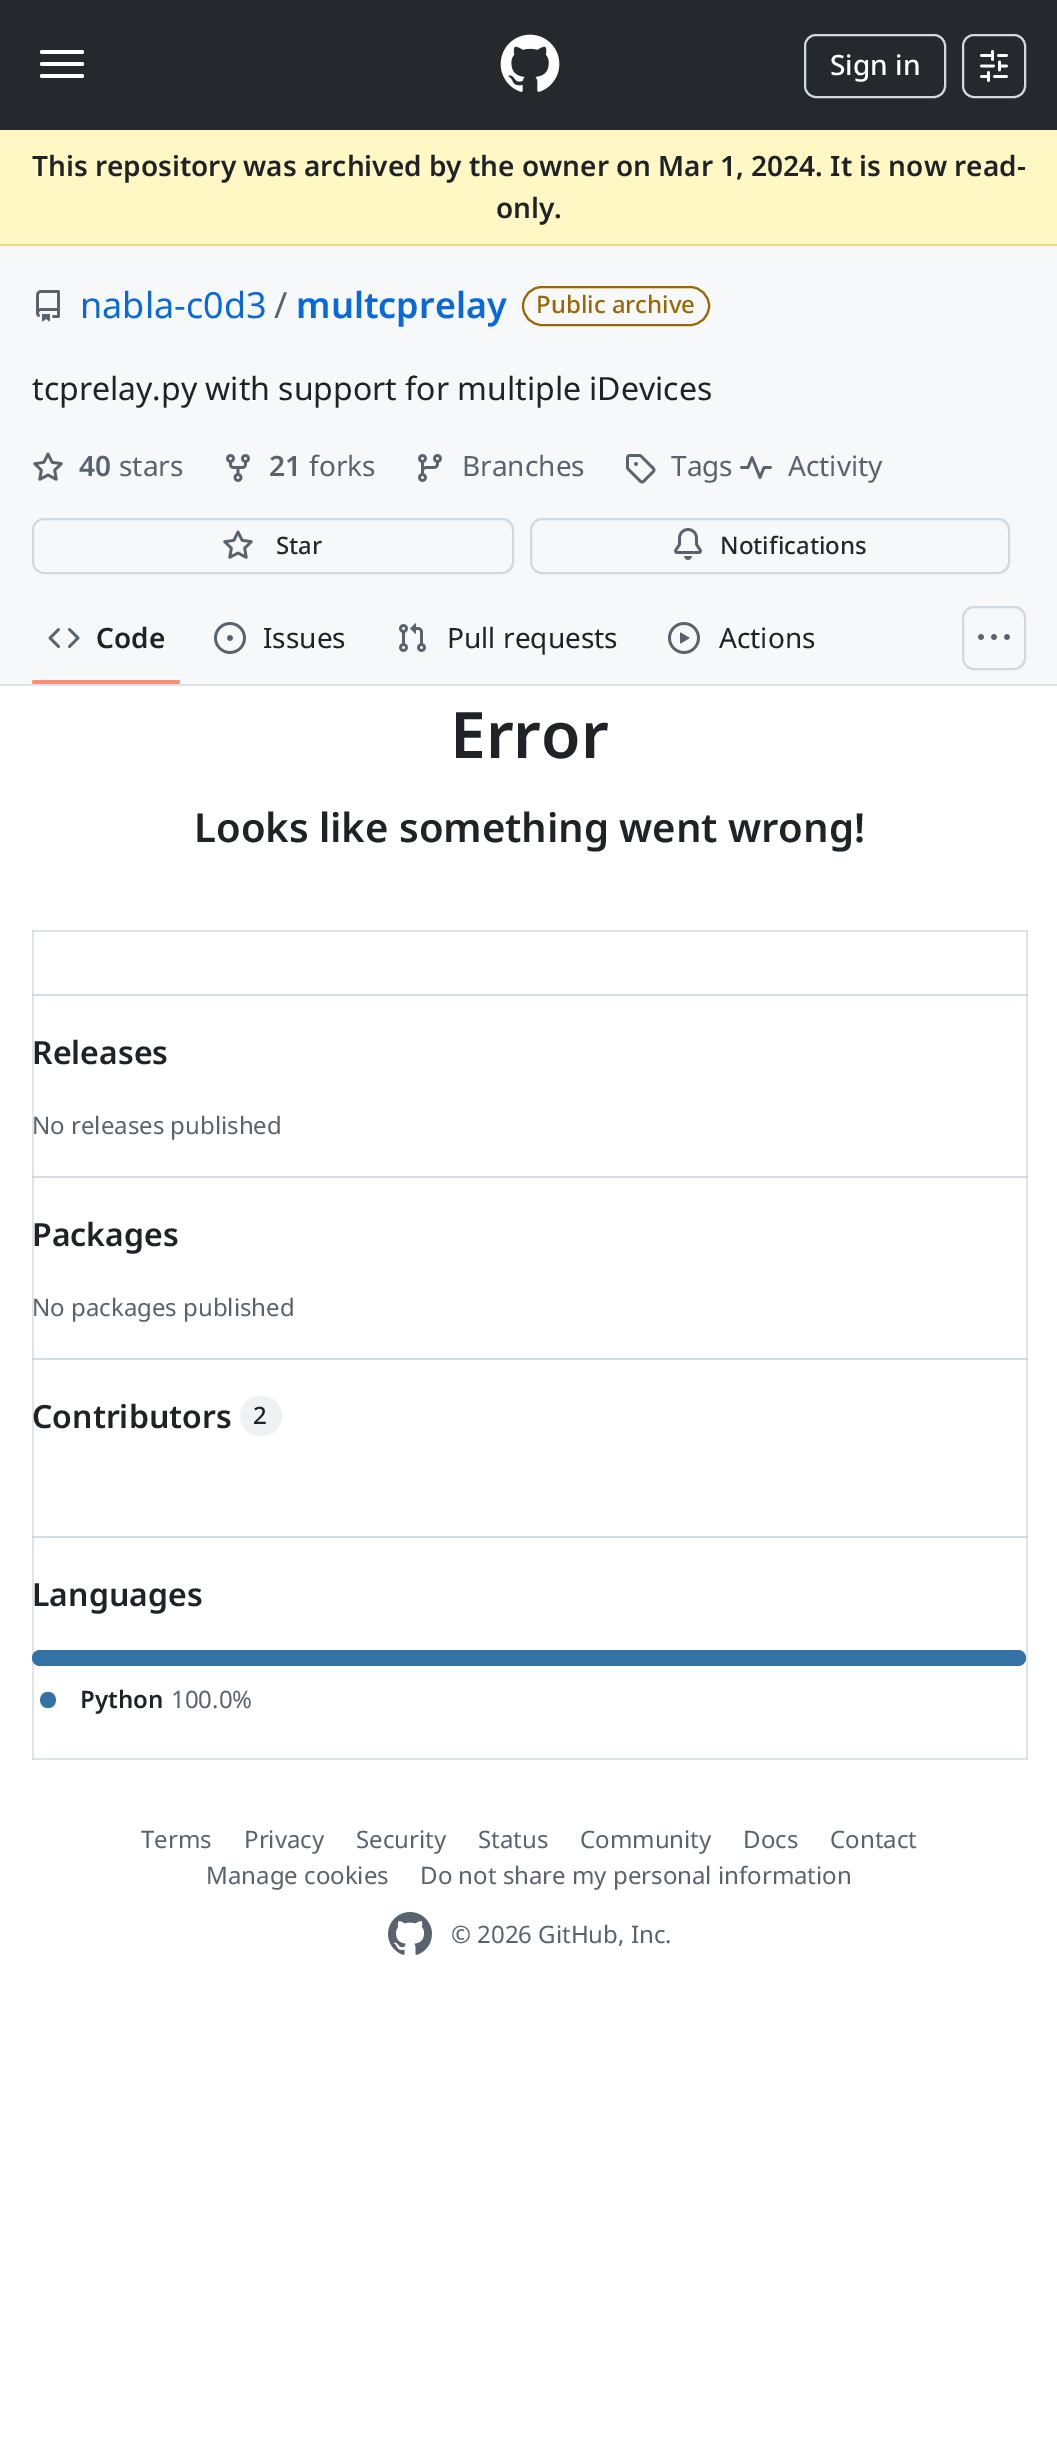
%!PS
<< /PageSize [1057 2447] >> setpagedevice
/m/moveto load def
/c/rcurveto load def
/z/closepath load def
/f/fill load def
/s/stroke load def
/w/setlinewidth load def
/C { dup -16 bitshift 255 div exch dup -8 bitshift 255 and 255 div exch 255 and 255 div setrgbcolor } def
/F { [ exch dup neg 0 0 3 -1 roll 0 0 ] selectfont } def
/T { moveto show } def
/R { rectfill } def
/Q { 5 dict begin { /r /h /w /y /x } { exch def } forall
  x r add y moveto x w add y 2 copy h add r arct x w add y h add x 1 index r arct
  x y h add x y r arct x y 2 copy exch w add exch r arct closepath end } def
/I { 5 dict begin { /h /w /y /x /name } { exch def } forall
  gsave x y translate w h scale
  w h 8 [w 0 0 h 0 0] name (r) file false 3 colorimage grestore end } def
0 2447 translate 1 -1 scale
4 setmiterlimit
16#FFFFFF C
0 0 1057 2447 R
16#DFE4E9 C
32 930 2 830 R
1026 930 2 608 R
32 1758 996 2 R
16#D5DCE3 C
32 1758 2 2 R
16#DFE4E9 C
1026 1536 2 224 R
16#D5DCE3 C
1026 1758 2 2 R
16#25292E C
0 0 1057 130 R
16#FFFFFF C
40 50 44 4 2 Q f
40 62 44 4 2 Q f
40 74 44 4 2 Q f
(1.rgb) 500 34 60 58 I
16#D1D9E0 C
2 w
805 35 140 62 11 Q s
/NotoSans-Medium 28 F
16#FFFFFF C
(Sign in) 830 75 T
16#D1D9E0 C
963 35 62 62 11 Q s
(2.rgb) 980 50 28 32 I
16#FFF8C5 C
0 130 1057 114 R
16#EED888 C
0 244 1057 2 R
/NotoSans-SemiBold 28 F
16#1F2328 C
(This repository was archived by the owner on Mar 1, 2024. It is now read-) 32 176 T
(only.) 496 218 T
16#F6F8FA C
0 246 1057 438 R
(3.rgb) 36 290 24 32 I
/NotoSans-Regular 36 F
16#0969DA C
(nabla-c0d3) 80 318 T
16#59636E C
(/) 274 318 T
/NotoSans-SemiBold 36 F
16#0969DA C
(multcprelay) 296 318 T
16#9A6700 C
523 287 186 38 19 Q s
/NotoSans-Medium 24 F
(Public archive) 536 313 T
/NotoSans-Regular 32 F
16#1F2328 C
(tcprelay.py with support for multiple iDevices) 32 400 T
(4.rgb) 33 452 30 29 I
/NotoSans-SemiBold 28 F
16#59636E C
(40) 79 476 T
/NotoSans-Regular 28 F
(stars) 119 476 T
(5.rgb) 226 454 24 28 I
/NotoSans-SemiBold 28 F
(21) 269 476 T
/NotoSans-Regular 28 F
(forks) 309 476 T
(6.rgb) 418 454 24 28 I
(Branches) 462 476 T
(7.rgb) 626 454 30 30 I
(Tags) 671 476 T
(8.rgb) 740 456 32 23 I
(Activity) 788 476 T
16#D1D9E0 C
33 519 480 54 11 Q s
(4.rgb) 223 530 30 29 I
/NotoSans-Medium 24 F
16#25292E C
(Star) 276 554 T
16#D1D9E0 C
531 519 478 54 11 Q s
(9.rgb) 674 528 28 32 I
16#25292E C
(Notifications) 720 554 T
16#DCE2E8 C
0 684 1057 2 R
(10.rgb) 48 628 32 20 I
/NotoSans-SemiBold 28 F
16#1F2328 C
(Code) 96 648 T
16#FD8C73 C
32 680 148 4 2 Q f
(11.rgb) 214 622 32 32 I
/NotoSans-Regular 28 F
16#1F2328 C
(Issues) 263 648 T
(12.rgb) 399 623 27 29 I
(Pull requests) 447 648 T
(13.rgb) 668 622 32 32 I
(Actions) 719 648 T
16#D1D9E0 C
963 607 62 62 11 Q s
(14.rgb) 978 634 32 6 I
/NotoSans-SemiBold 64 F
16#1F2328 C
(Error) 450 758 T
/NotoSans-SemiBold 40 F
(Looks like something went wrong!) 194 842 T
16#DFE4E9 C
32 930 996 2 R
16#D5DCE3 C
32 930 2 2 R
1026 930 2 2 R
32 994 996 2 R
16#D1D9E0 C
32 994 2 2 R
1026 994 2 2 R
/NotoSans-SemiBold 32 F
16#1F2328 C
(Releases) 32 1064 T
/NotoSans-Regular 24 F
16#59636E C
(No releases published) 32 1134 T
16#D5DCE3 C
32 1176 996 2 R
16#D1D9E0 C
32 1176 2 2 R
1026 1176 2 2 R
/NotoSans-SemiBold 32 F
16#1F2328 C
(Packages) 32 1246 T
/NotoSans-Regular 24 F
16#59636E C
(No packages published) 32 1316 T
16#D5DCE3 C
32 1358 996 2 R
16#D1D9E0 C
32 1358 2 2 R
1026 1358 2 2 R
/NotoSans-SemiBold 32 F
16#1F2328 C
(Contributors) 32 1428 T
16#F0F1F3 C
240 1396 42 40 20 Q f
/NotoSans-Medium 24 F
16#1F2328 C
(2) 253 1424 T
16#D5DCE3 C
32 1536 996 2 R
16#D1D9E0 C
32 1536 2 2 R
1026 1536 2 2 R
/NotoSans-SemiBold 32 F
16#1F2328 C
(Languages) 32 1606 T
16#3572A5 C
32 1650 994 16 8 Q f
48 1692 m 10.5 0 10.5 16 0 16 c -10.5 0 -10.5 -16 0 -16 c z f
/NotoSans-SemiBold 24 F
16#1F2328 C
(Python) 80 1708 T
/NotoSans-Regular 24 F
16#59636E C
(100.0%) 171 1708 T
(Terms) 141 1848 T
(Privacy) 244 1848 T
(Security) 356 1848 T
(Status) 478 1848 T
(Community) 580 1848 T
(Docs) 743 1848 T
(Contact) 830 1848 T
(Manage cookies) 206 1884 T
(Do not share my personal information) 420 1884 T
(15.rgb) 388 1912 44 43 I
(© 2026 GitHub, Inc.) 451 1943 T
showpage
